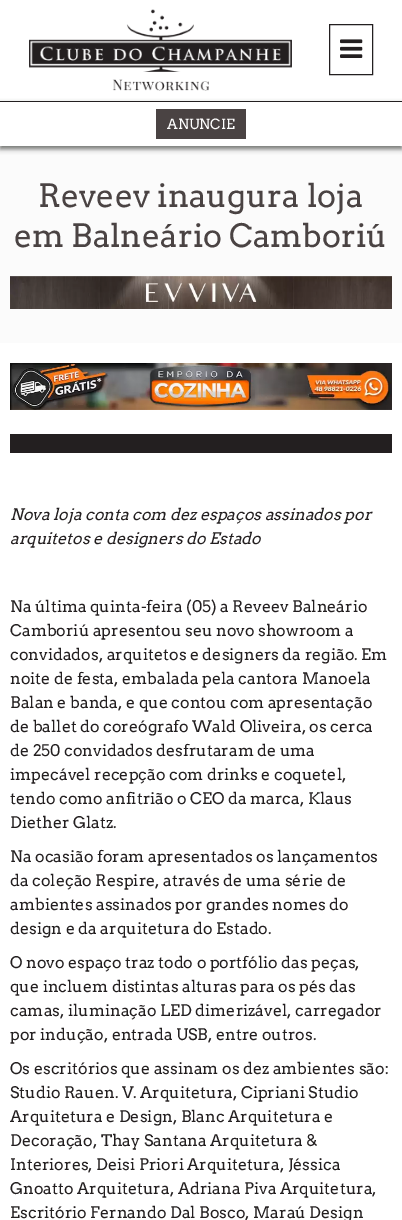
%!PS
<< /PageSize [402 1220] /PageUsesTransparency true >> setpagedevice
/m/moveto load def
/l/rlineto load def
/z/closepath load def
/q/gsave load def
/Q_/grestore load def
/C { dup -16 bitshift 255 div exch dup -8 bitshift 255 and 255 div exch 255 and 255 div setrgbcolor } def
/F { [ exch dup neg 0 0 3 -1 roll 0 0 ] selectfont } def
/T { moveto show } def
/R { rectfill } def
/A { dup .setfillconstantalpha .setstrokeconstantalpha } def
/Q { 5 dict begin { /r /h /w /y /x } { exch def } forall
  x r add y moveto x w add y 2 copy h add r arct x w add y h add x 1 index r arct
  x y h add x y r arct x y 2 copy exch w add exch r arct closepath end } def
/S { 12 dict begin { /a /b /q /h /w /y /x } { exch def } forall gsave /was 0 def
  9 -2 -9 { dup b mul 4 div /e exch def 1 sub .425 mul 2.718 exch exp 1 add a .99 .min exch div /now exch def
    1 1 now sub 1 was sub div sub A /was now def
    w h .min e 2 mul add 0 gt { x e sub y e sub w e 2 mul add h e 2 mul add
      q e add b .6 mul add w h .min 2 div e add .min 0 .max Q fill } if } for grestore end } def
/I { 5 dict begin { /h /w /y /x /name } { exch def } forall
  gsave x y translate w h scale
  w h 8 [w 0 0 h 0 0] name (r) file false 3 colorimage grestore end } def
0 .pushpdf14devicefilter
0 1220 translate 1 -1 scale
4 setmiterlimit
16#FFFFFF C
0 0 402 1220 R
(1.rgb) 29 9 263 82 I
16#231F20 C
329.5 24.5 43 50 rectstroke
(2.rgb) 340 39 23 19 I
16#FBFBFB C
0 146 402 197 R
q
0 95 m 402 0 l 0 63 l -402 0 l z 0 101 m 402 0 l 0 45 l -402 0 l z eoclip newpath
16#6F716E C
0 104 402 45 0 2.5 1 S
Q_
16#231F20 C
0 101 402 1 R
16#4A4343 C
156 109 90 30 R
/Arvo-Regular 14 F
16#FFFFFF C
(ANUNCIE) 167 129 T
/Arvo-Regular 32 F
16#4A4343 C
(Reveev inaugura loja) 38 207 T
(em Balneário Camboriú) 14 247 T
(3.rgb) 10 276 382 33 I
(4.rgb) 10 363 382 47 I
16#231F20 C
10 434 382 19 R
/Arvo-Italic 16 F
(Nova loja conta com dez espaços assinados por) 10 520 T
(arquitetos e designers do Estado) 10 544 T
/Arvo-Regular 16 F
(Na última quinta-feira \(05\) a Reveev Balneário) 10 612 T
(Camboriú apresentou seu novo showroom a) 10 636 T
(convidados, arquitetos e designers da região. Em) 10 660 T
(noite de festa, embalada pela cantora Manoela) 10 684 T
(Balan e banda, e que contou com apresentação) 10 708 T
(de ballet do coreógrafo Wald Oliveira, os cerca) 10 732 T
(de 250 convidados desfrutaram de uma) 10 756 T
(impecável recepção com drinks e coquetel,) 10 780 T
(tendo como anfitrião o CEO da marca, Klaus) 10 804 T
(Diether Glatz.) 10 828 T
(Na ocasião foram apresentados os lançamentos) 10 862 T
(da coleção Respire, através de uma série de) 10 886 T
(ambientes assinados por grandes nomes do) 10 910 T
(design e da arquitetura do Estado.) 10 934 T
(O novo espaço traz todo o portfólio das peças,) 10 968 T
(que incluem distintas alturas para os pés das) 10 992 T
(camas, iluminação LED dimerizável, carregador) 10 1016 T
(por indução, entrada USB, entre outros.) 10 1040 T
(Os escritórios que assinam os dez ambientes são:) 10 1074 T
(Studio Rauen. V. Arquitetura, Cipriani Studio) 10 1098 T
(Arquitetura e Design, Blanc Arquitetura e) 10 1122 T
(Decoração, Thay Santana Arquitetura &) 10 1146 T
(Interiores, Deisi Priori Arquitetura, Jéssica) 10 1170 T
(Gnoatto Arquitetura, Adriana Piva Arquitetura,) 10 1194 T
(Escritório Fernando Dal Bosco, Maraú Design) 10 1218 T
.poppdf14devicefilter showpage
